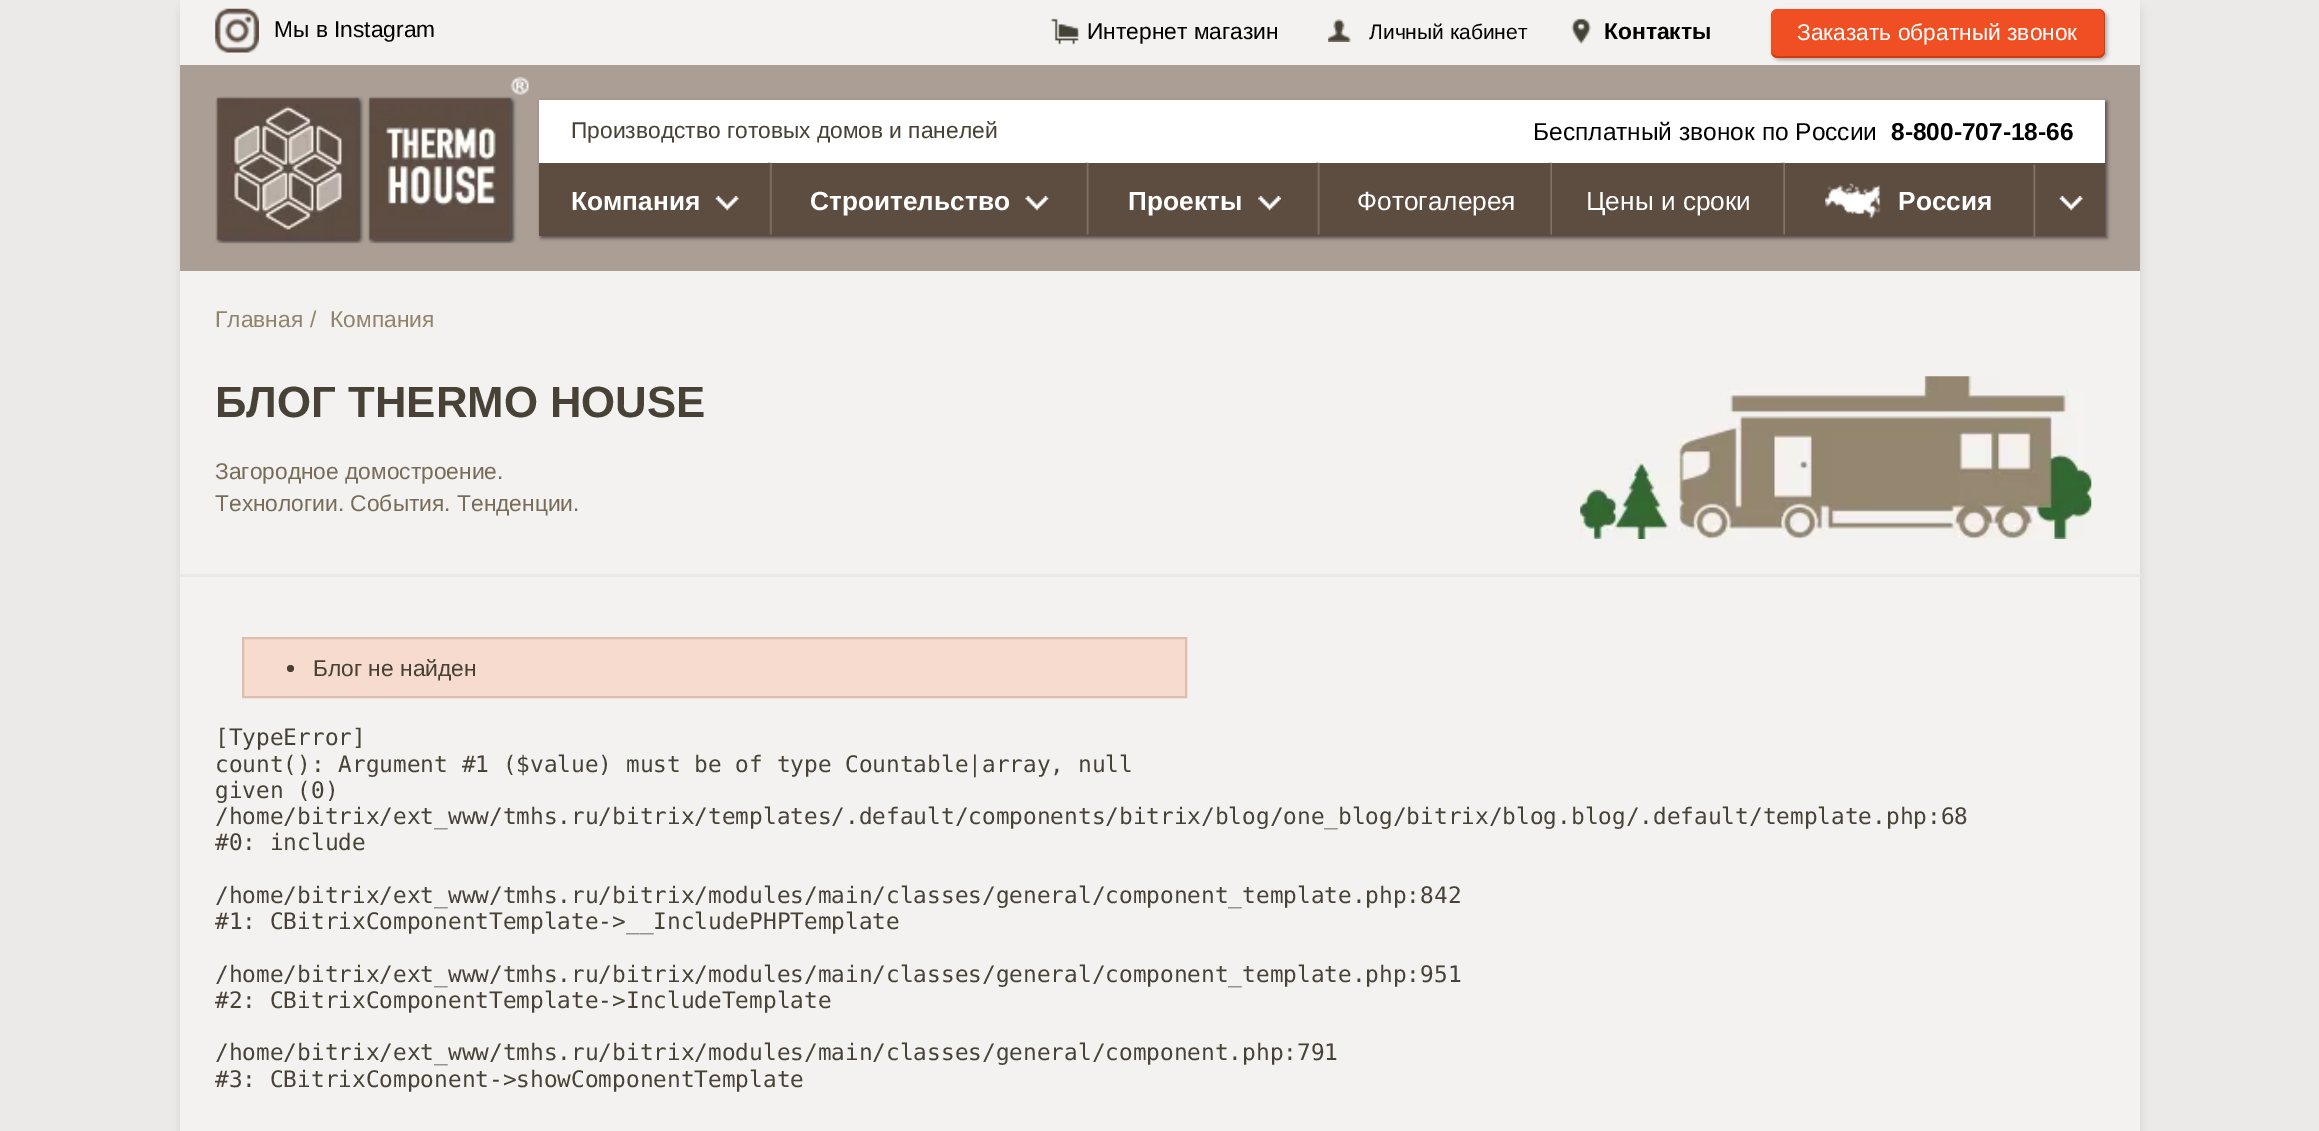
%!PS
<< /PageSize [2319 1131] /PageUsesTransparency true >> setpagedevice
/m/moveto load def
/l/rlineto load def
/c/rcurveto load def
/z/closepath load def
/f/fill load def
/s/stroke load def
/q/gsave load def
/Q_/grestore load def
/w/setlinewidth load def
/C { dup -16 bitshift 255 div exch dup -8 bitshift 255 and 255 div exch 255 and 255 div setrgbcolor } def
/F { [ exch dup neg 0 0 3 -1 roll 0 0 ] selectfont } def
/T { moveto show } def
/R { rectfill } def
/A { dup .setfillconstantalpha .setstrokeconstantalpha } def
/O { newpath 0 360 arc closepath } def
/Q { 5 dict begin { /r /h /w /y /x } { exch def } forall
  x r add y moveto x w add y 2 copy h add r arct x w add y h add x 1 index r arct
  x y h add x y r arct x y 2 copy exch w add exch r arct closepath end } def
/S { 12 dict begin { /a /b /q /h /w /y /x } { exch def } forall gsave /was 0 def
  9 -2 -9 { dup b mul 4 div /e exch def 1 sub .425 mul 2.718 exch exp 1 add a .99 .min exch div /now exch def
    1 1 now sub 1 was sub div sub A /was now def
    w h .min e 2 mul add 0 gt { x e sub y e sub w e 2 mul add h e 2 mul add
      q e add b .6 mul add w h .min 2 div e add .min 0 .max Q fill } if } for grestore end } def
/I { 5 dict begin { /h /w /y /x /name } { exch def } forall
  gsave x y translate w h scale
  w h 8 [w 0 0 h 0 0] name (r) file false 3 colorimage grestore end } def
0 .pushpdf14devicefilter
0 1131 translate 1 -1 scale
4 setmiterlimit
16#EBEAE8 C
0 0 2319 1131 R
16#BEBDBB C
184 12 1953 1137 0 6 1 S
16#F3F2F0 C
180 0 1960 1131 R
(1.rgb) 215 8 44 45 I
/LiberationSans-Regular 22.75 F
16#000000 C
(Мы в Instagram) 274 37 T
(2.rgb) 1051 18 28 27 I
(Интернет магазин) 1087 39 T
(3.rgb) 1328 19 23 23 I
/LiberationSans-Regular 21 F
(Личный кабинет) 1369 39 T
(4.rgb) 1571 18 21 27 I
/LiberationSans-Bold 22.75 F
(Контакты) 1604 39 T
1773 11 334 49 7 2 .3 S
16#F04F23 C
1771 9 334 49 7 Q f
16#D23B0F C
1778 9 m 320 0 l 4 0 7 3 7 7 c 0 35 l 0 4 -3 7 -7 7 c -320 0 l -4 0 -7 -3 -7 -7 c 0 -35 l 0 -4 3 -7 7 -7 c z 1778 9 m 320 0 l 3 0 6 3 6 7 c 0 35 l 0 3 -3 5 -6 5 c -320 0 l -4 0 -7 -2 -7 -5 c 0 -35 l 0 -4 3 -7 7 -7 c z eofill
/LiberationSans-Regular 22.75 F
16#FFFFFF C
(Заказать обратный звонок) 1797 40 T
16#AB9F95 C
180 65 1960 206 R
(5.rgb) 215 77 314 167 I
16#534547 C
541 102 1566 136 0 2 1 S
16#FFFFFF C
539 100 1566 63 R
16#474136 C
(Производство готовых домов и панелей) 571 138 T
/LiberationSans-Regular 24.5 F
16#000000 C
(Бесплатный звонок по России) 1533 140 T
/LiberationSans-Bold 24.5 F
(8-800-707-18-66) 1891 140 T
16#5D4D41 C
539 163 1013 73 R
(6.rgb) 768 162 4 73 I
/LiberationSans-Bold 26.25 F
16#FFFFFF C
(Компания) 571 210 T
(7.rgb) 715 196 24 16 I
(8.rgb) 1085 162 4 73 I
(Строительство) 810 210 T
(9.rgb) 1025 196 24 16 I
(8.rgb) 1316 162 4 73 I
(Проекты) 1128 210 T
(10.rgb) 1258 196 23 16 I
(11.rgb) 1548 162 5 73 I
/LiberationSans-Regular 26.25 F
(Фотогалерея) 1357 210 T
16#5D4D41 C
1552 163 553 73 R
(12.rgb) 1781 162 4 73 I
16#FFFFFF C
(Цены и сроки) 1586 210 T
(13.rgb) 1825 183 56 36 I
/LiberationSans-Bold 26.25 F
(Россия) 1898 210 T
(14.rgb) 2032 164 4 73 I
(15.rgb) 2059 196 24 16 I
/LiberationSans-Regular 22.75 F
16#91836C C
(Главная) 215 327 T
(/) 310 327 T
(Компания) 330 327 T
16#EAE9E7 C
180 574 1961 3 R
/LiberationSans-Bold 43.75 F
16#474136 C
(БЛОГ THERMO HOUSE) 215 417 T
/LiberationSans-Regular 22.75 F
16#786C58 C
(Загородное домостроение.) 215 479 T
(Технологии. События. Тенденции.) 215 511 T
(16.rgb) 1580 376 512 163 I
16#F6DBCE C
243 638 m 943 0 l 0 59 l -943 0 l z q f Q_
16#DFBDAC C
2 w
s
16#474136 C
290.5 668.5 3.5 O f
(Блог не найден) 313 676 T
/DejaVuSansMono-Regular 22.75 F
([TypeError]) 215 745 T
(count\(\): Argument #1 \($value\) must be of type Countable|array, null) 215 772 T
(given \(0\)) 215 798 T
(/home/bitrix/ext_www/tmhs.ru/bitrix/templates/.default/components/bitrix/blog/one_blog/bitrix/blog.blog/.default/template.php:68) 215 824 T
(#0: include) 215 850 T
(/home/bitrix/ext_www/tmhs.ru/bitrix/modules/main/classes/general/component_template.php:842) 215 903 T
(#1: CBitrixComponentTemplate->__IncludePHPTemplate) 215 929 T
(/home/bitrix/ext_www/tmhs.ru/bitrix/modules/main/classes/general/component_template.php:951) 215 982 T
(#2: CBitrixComponentTemplate->IncludeTemplate) 215 1008 T
(/home/bitrix/ext_www/tmhs.ru/bitrix/modules/main/classes/general/component.php:791) 215 1060 T
(#3: CBitrixComponent->showComponentTemplate) 215 1087 T
.poppdf14devicefilter showpage
